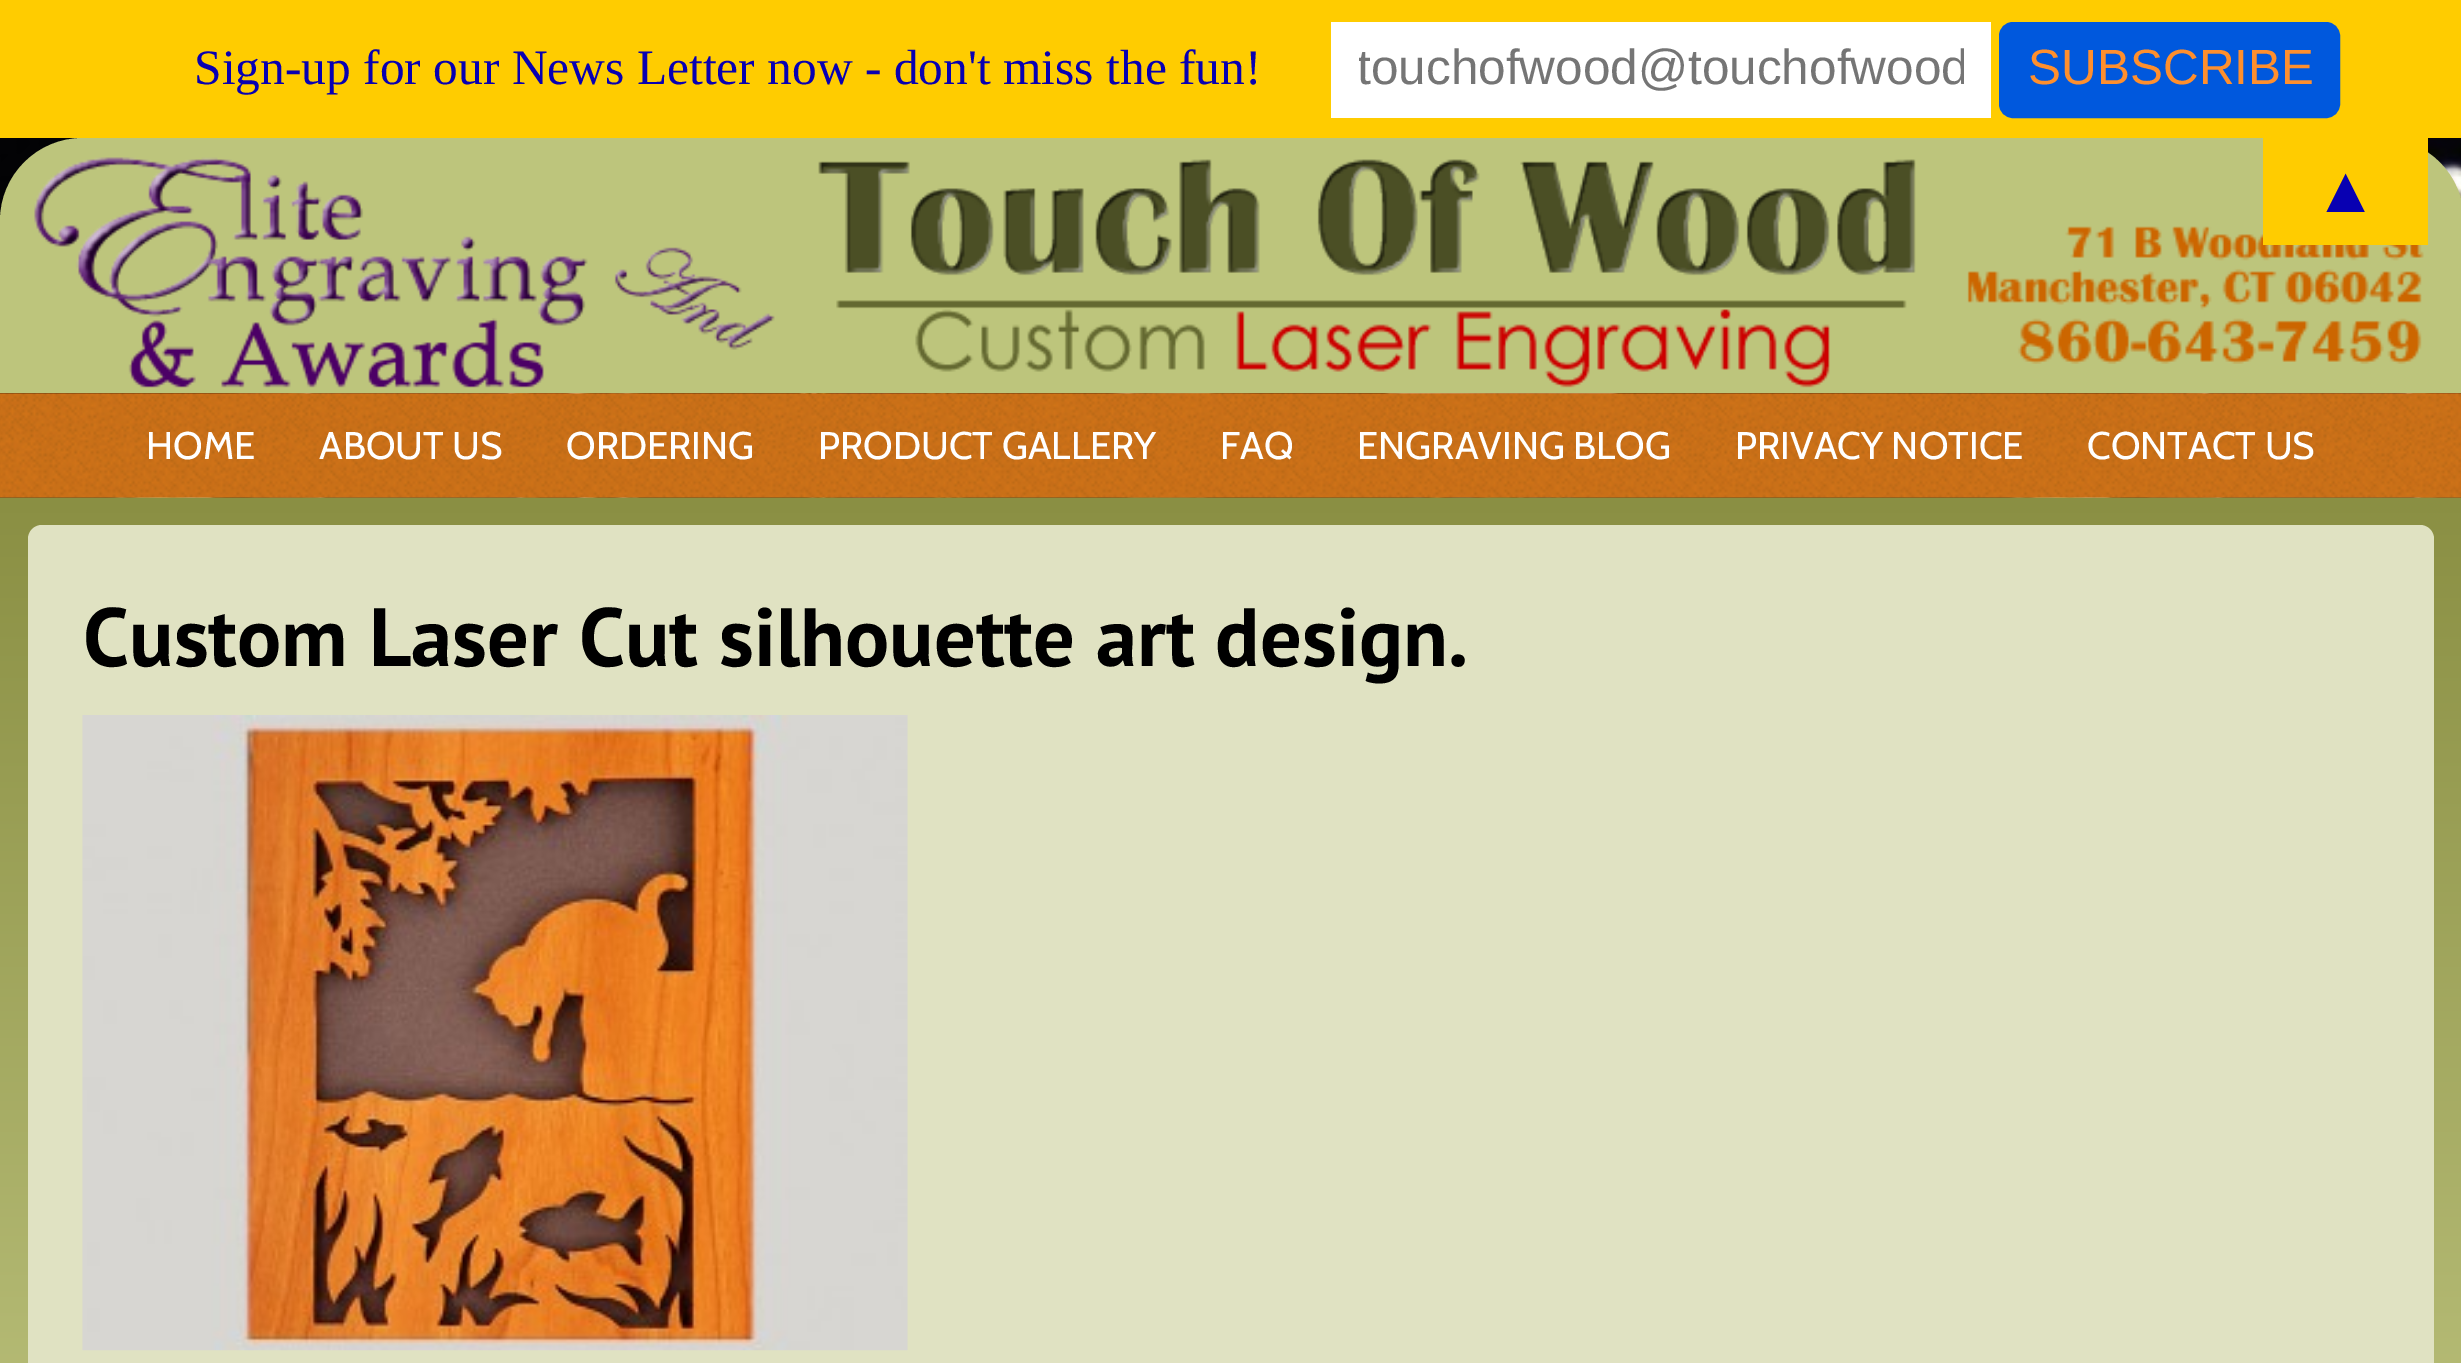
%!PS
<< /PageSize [2461 1363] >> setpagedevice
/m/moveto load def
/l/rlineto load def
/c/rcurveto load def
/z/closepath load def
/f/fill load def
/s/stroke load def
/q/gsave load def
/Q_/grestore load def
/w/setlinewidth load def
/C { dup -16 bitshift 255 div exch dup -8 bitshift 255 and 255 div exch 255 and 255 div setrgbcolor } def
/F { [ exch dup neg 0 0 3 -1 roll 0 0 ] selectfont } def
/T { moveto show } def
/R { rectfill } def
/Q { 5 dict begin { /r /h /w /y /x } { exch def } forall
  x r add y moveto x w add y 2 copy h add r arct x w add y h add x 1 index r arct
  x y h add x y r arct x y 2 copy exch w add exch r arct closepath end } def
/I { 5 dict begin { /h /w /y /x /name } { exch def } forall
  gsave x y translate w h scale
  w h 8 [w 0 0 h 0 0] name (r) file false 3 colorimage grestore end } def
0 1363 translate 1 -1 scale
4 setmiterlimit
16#FFFFFF C
0 0 2461 1363 R
(1.rgb) 0 138 2461 360 I
16#FFCC00 C
0 0 2461 138 R
/LiberationSerif-Regular 49.5 F
16#0800B2 C
(Sign-up for our News Letter now - don't miss the fun!) 194 84 T
16#FFFFFF C
1331 22 660 96 R
q
1359 41 605 58 rectclip
/LiberationSans-Regular 49.5 F
16#757575 C
(touchofwood@touchofwood) 1357 84 T
Q_
16#0058DD C
2000.5 23.5 338 93 12.5 Q q f Q_
3 w
s
/LiberationSans-Regular 49.5 F
16#FF8F2D C
(SUBSCRIBE) 2028 84 T
16#BDC57C C
83 138 m 2298 0 l 46 0 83 37 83 83 c 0 172 l -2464 0 l 0 -172 l 0 -46 37 -83 83 -83 c z f
(4.rgb) 1967 226 457 138 I
16#FFCC00 C
2263 138 165 107 R
/LiberationSerif-Regular 66 F
16#0800B2 C
(▲) 2313 212 T
(2.rgb) 34 157 741 231 I
(3.rgb) 818 159 1098 229 I
(5.rgb) 0 393 2461 105 I
/Cabin-Regular 38.5 F
16#FFFFFF C
(HOME) 146 459 T
(ABOUT US) 319 459 T
(ORDERING) 566 459 T
(PRODUCT GALLERY) 818 459 T
(FAQ) 1220 459 T
(ENGRAVING BLOG) 1357 459 T
(PRIVACY NOTICE) 1735 459 T
(CONTACT US) 2087 459 T
(6.rgb) 0 497 2461 866 I
16#E0E2C2 C
28 525 2406 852 14 Q f
/PTSans-Bold 82.5 F
16#000000 C
(Custom Laser Cut silhouette art design.) 83 666 T
(7.rgb) 82 715 826 636 I
showpage
